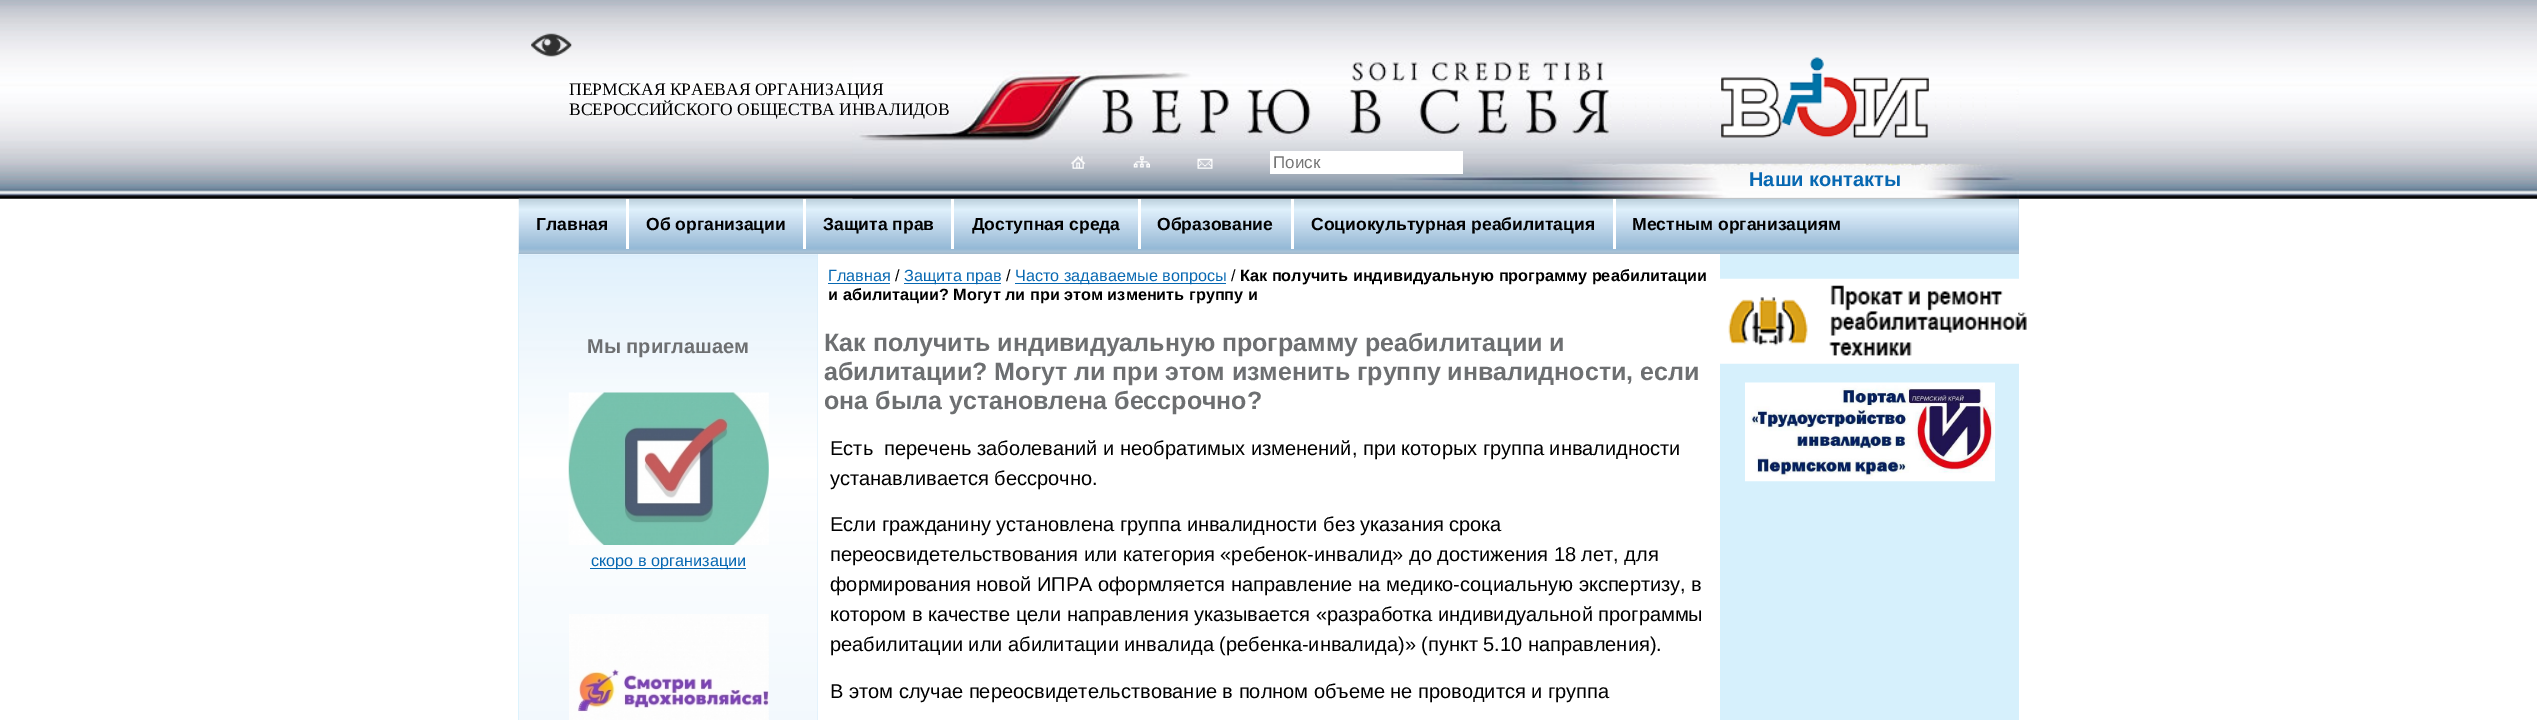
%!PS
<< /PageSize [2537 720] >> setpagedevice
/C { dup -16 bitshift 255 div exch dup -8 bitshift 255 and 255 div exch 255 and 255 div setrgbcolor } def
/F { [ exch dup neg 0 0 3 -1 roll 0 0 ] selectfont } def
/T { moveto show } def
/R { rectfill } def
/I { 5 dict begin { /h /w /y /x /name } { exch def } forall
  gsave x y translate w h scale
  w h 8 [w 0 0 h 0 0] name (r) file false 3 colorimage grestore end } def
0 720 translate 1 -1 scale
4 setmiterlimit
16#FFFFFF C
0 0 2537 720 R
(1.rgb) 0 0 2537 199 I
(2.rgb) 852 60 1167 139 I
(3.rgb) 531 33 41 24 I
/LiberationSerif-Regular 17.5 F
16#000000 C
(ПЕРМСКАЯ КРАЕВАЯ ОРГАНИЗАЦИЯ) 569 95 T
(ВСЕРОССИЙСКОГО ОБЩЕСТВА ИНВАЛИДОВ) 569 115 T
(4.rgb) 1721 57 208 81 I
(5.rgb) 1071 156 15 13 I
(6.rgb) 1133 156 17 12 I
(7.rgb) 1197 158 16 11 I
16#FFFFFF C
1270 151 193 23 R
/LiberationSans-Regular 17 F
16#757575 C
(Поиск) 1273 168 T
/LiberationSans-Bold 20 F
16#0768B2 C
(Наши контакты) 1749 186 T
16#D6F0FC C
518 253 1 467 R
16#D4ECFB C
817 254 1 466 R
(9.rgb) 518 253 300 467 I
16#A4BCCE C
519 199 1500 55 R
(8.rgb) 518 198 1501 56 I
/LiberationSans-Bold 17.5 F
16#000000 C
(Главная) 536 230 T
16#FFFFFF C
626 199 3 50 R
16#000000 C
(Об организации) 646 230 T
16#FFFFFF C
803 199 3 50 R
16#000000 C
(Защита прав) 823 230 T
16#FFFFFF C
951 199 3 50 R
16#000000 C
(Доступная среда) 972 230 T
16#FFFFFF C
1138 199 3 50 R
16#000000 C
(Образование) 1157 230 T
16#FFFFFF C
1291 199 3 50 R
16#000000 C
(Социокультурная реабилитация) 1311 230 T
16#FFFFFF C
1613 199 3 50 R
16#000000 C
(Местным организациям) 1632 230 T
16#D6F0FC C
1720 254 299 466 R
/LiberationSans-Bold 20 F
16#6D6F71 C
(Мы приглашаем) 587 353 T
(10.rgb) 568 392 201 153 I
16#0768B2 C
590 568 156 1 R
/LiberationSans-Regular 16.25 F
(скоро в организации) 591 566 T
(11.rgb) 569 614 200 106 I
(Главная) 828 281 T
828 283 62 1 R
16#000000 C
(/) 895 281 T
16#0768B2 C
904 283 97 1 R
(Защита прав) 904 281 T
16#000000 C
(/) 1006 281 T
16#0768B2 C
1015 283 211 1 R
(Часто задаваемые вопросы) 1015 281 T
16#000000 C
(/) 1231 281 T
/LiberationSans-Bold 16.25 F
(Как получить индивидуальную программу реабилитации) 1240 281 T
(и абилитации? Могут ли при этом изменить группу и) 828 300 T
/LiberationSans-Bold 25 F
16#6D6F71 C
(Как получить индивидуальную программу реабилитации и) 824 351 T
(абилитации? Могут ли при этом изменить группу инвалидности, если) 824 380 T
(она была установлена бессрочно?) 824 409 T
/LiberationSans-Regular 20 F
16#000000 C
(Есть  перечень заболеваний и необратимых изменений, при которых группа инвалидности) 830 455 T
(устанавливается бессрочно.) 830 485 T
(Если гражданину установлена группа инвалидности без указания срока) 830 531 T
(переосвидетельствования или категория «ребенок-инвалид» до достижения 18 лет, для) 830 561 T
(формирования новой ИПРА оформляется направление на медико-социальную экспертизу, в) 830 591 T
(котором в качестве цели направления указывается «разработка индивидуальной программы) 830 621 T
(реабилитации или абилитации инвалида \(ребенка-инвалида\)» \(пункт 5.10 направления\).) 830 651 T
(В этом случае переосвидетельствование в полном объеме не проводится и группа) 830 698 T
(12.rgb) 1720 278 307 86 I
(13.rgb) 1745 382 250 100 I
showpage
